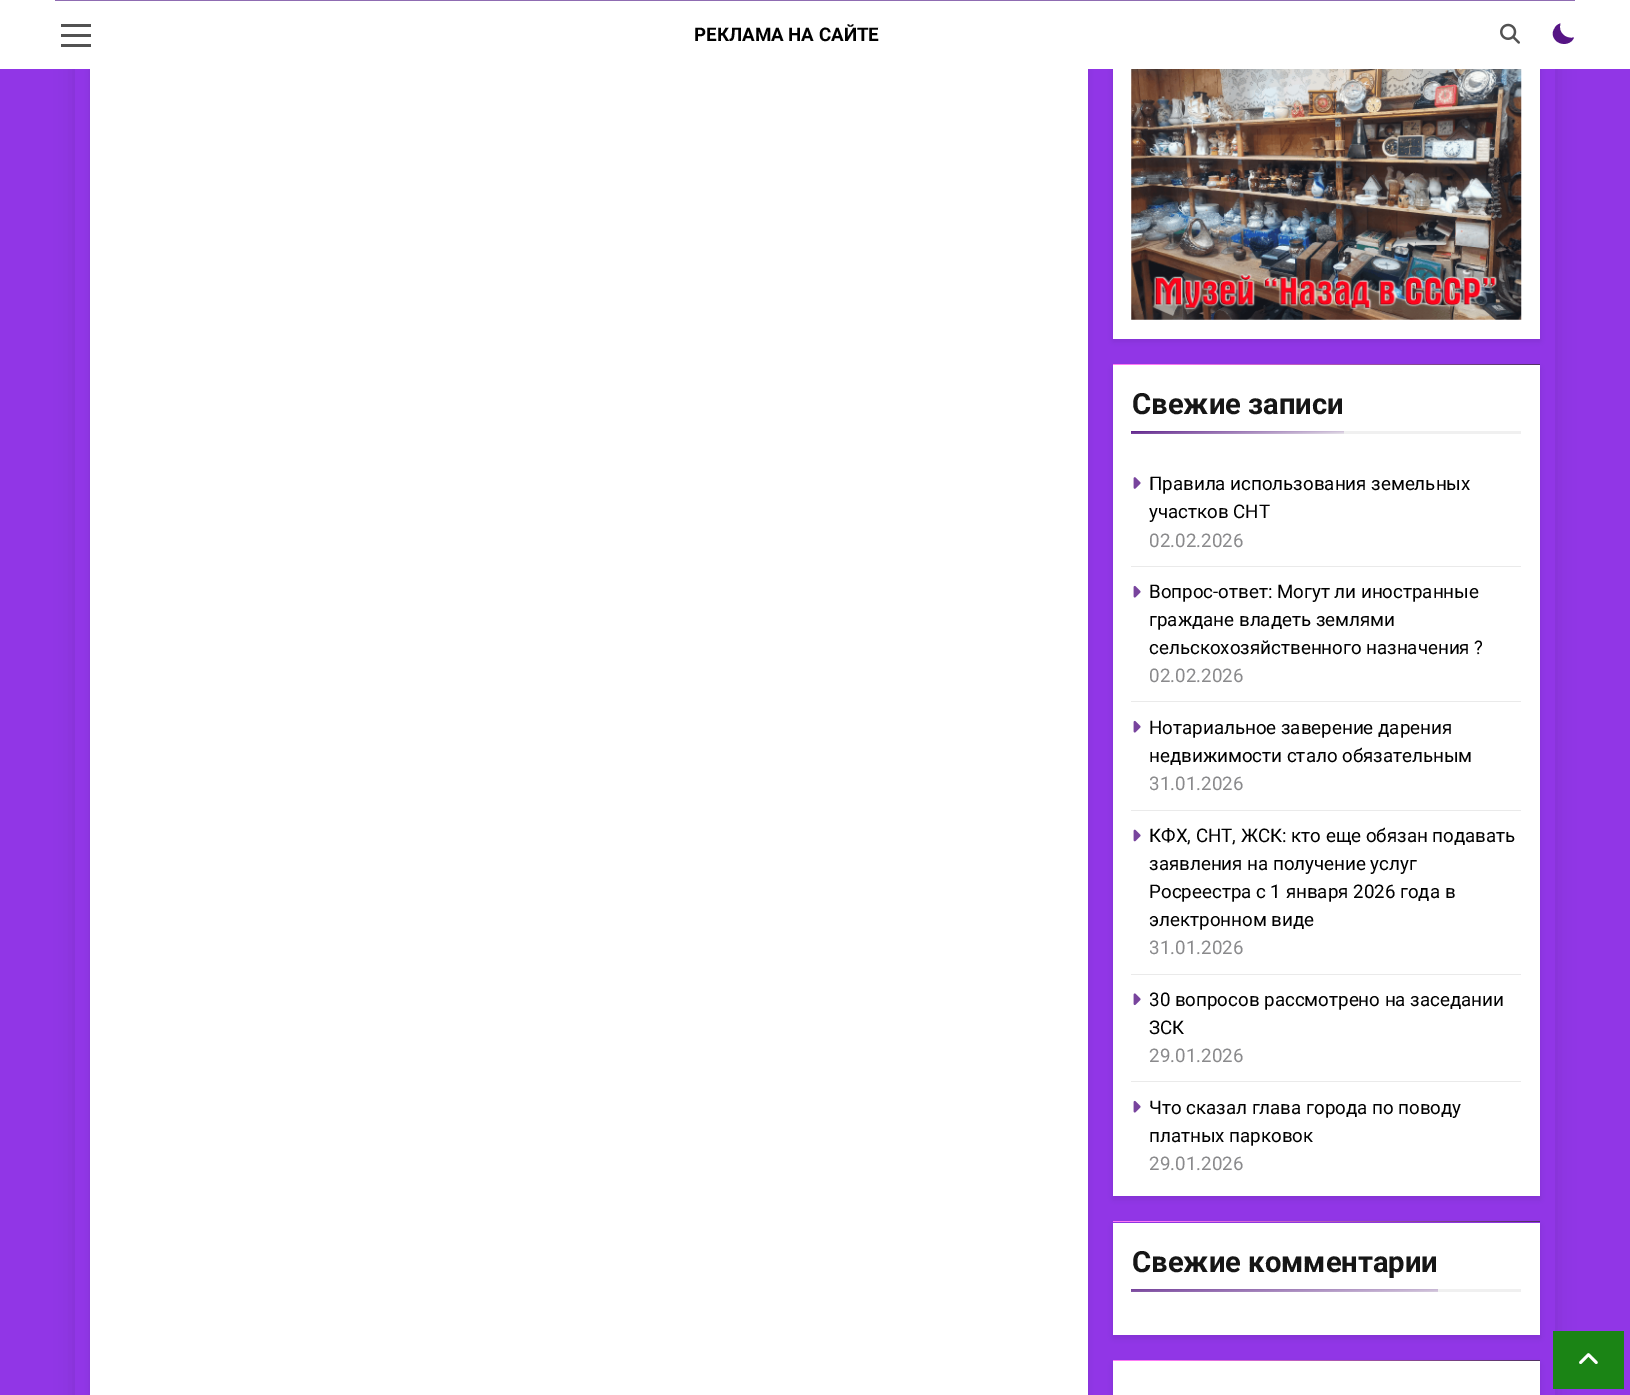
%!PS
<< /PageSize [1630 1395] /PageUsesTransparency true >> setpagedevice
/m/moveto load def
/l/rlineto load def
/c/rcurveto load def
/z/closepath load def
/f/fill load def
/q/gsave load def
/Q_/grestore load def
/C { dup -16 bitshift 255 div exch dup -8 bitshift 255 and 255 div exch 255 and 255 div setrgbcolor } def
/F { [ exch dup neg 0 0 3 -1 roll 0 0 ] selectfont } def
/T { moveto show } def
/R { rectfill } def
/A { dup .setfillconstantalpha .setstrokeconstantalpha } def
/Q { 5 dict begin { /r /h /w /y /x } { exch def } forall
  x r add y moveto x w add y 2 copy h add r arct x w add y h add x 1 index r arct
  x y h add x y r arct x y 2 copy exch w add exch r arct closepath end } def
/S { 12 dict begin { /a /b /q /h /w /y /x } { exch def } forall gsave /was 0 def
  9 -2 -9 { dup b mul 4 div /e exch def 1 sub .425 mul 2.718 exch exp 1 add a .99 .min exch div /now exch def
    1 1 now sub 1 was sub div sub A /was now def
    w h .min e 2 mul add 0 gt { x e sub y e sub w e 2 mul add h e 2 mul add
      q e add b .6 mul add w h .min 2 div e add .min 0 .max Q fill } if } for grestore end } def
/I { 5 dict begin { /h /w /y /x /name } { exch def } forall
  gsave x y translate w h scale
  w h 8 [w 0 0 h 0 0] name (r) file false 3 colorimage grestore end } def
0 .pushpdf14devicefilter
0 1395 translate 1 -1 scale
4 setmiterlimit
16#9136E6 C
0 0 1630 1395 R
q
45 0 m 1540 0 l 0 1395 l -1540 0 l z 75 -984 m 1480 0 l 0 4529 l -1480 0 l z eoclip newpath
16#000000 C
75 -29 1480 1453 0 9.5 .1 S
Q_
16#000000 C
90 -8 998 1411 0 2.5 .08 S
1113 13 427 328 0 2.5 .08 S
16#FFFFFF C
0 0 1630 69 R
16#8F6CB2 C
55 0 1520 1 R
16#525252 C
61 24 30 3 R
61 34 30 3 R
61 44 30 3 R
/Roboto-Bold 18.75 F
16#000000 C
(РЕКЛАМА НА САЙТЕ) 694 41 T
(1.rgb) 1500 23 20 21 I
16#561585 C
1574 37.5 m -8.5 2 -16.5 -5.5 -13.5 -14 c -2.5 .5 -5 2.5 -6 5 c -1.5 2 -2 4.5 -1.5 7 c 2.5 10 17 11.5 21 2 c z f
16#FFFFFF C
90 69 998 1326 R
1113 69 427 270 R
(2.rgb) 1131 69 391 251 I
16#000000 C
1113 368 427 831 0 2.5 .08 S
16#FFFFFF C
1113 365 427 831 R
q 1113 364 m 427 0 l 0 1 l -427 0 l z clip newpath
<< /ShadingType 2 /ColorSpace /DeviceRGB /Coords [1219 257 1433 472] /Extend [true true] /Function << /FunctionType 3 /Domain [0 1] /Functions [<< /FunctionType 2 /Domain [0 1] /C0 [1 .478 .961] /C1 [1 .478 .961] /N 1 >> << /FunctionType 2 /Domain [0 1] /C0 [1 .478 .961] /C1 [.318 .192 .384] /N 1 >>] /Bounds [.1] /Encode [0 1 0 1] >> >> shfill Q_
16#F0F0F0 C
1344 431 177 3 R
/Roboto-Bold 29.25 F
16#161616 C
(Свежие записи) 1132 414 T
q 1131 431 m 213 0 l 0 3 l -213 0 l z clip newpath
<< /ShadingType 2 /ColorSpace /DeviceRGB /Coords [1237 424 1238 441] /Extend [true true] /Function << /FunctionType 2 /Domain [0 1] /C0 [.337 .082 .522] /C1 [.941 .941 .941] /N 1 >> >> shfill Q_
16#EAEAEA C
1131 566 390 1 R
(3.rgb) 1133 477 8 12 I
/Roboto-Regular 18.75 F
16#000000 C
(Правила использования земельных) 1149 490 T
(участков СНТ) 1149 518 T
16#8A8A8C C
(02.02.2026) 1149 547 T
16#EAEAEA C
1131 701 390 1 R
(4.rgb) 1133 585 8 13 I
16#000000 C
(Вопрос-ответ: Могут ли иностранные) 1149 598 T
(граждане владеть землями) 1149 626 T
(сельскохозяйственного назначения ?) 1149 654 T
16#8A8A8C C
(02.02.2026) 1149 682 T
16#EAEAEA C
1131 810 390 1 R
(4.rgb) 1133 720 8 13 I
16#000000 C
(Нотариальное заверение дарения) 1149 734 T
(недвижимости стало обязательным) 1149 762 T
16#8A8A8C C
(31.01.2026) 1149 790 T
16#EAEAEA C
1131 974 390 1 R
(5.rgb) 1133 829 8 13 I
16#000000 C
(КФХ, СНТ, ЖСК: кто еще обязан подавать) 1149 842 T
(заявления на получение услуг) 1149 870 T
(Росреестра с 1 января 2026 года в) 1149 898 T
(электронном виде) 1149 926 T
16#8A8A8C C
(31.01.2026) 1149 954 T
16#EAEAEA C
1131 1081 390 1 R
(6.rgb) 1133 993 8 13 I
16#000000 C
(30 вопросов рассмотрено на заседании) 1149 1006 T
(ЗСК) 1149 1034 T
16#8A8A8C C
(29.01.2026) 1149 1062 T
(4.rgb) 1133 1100 8 13 I
16#000000 C
(Что сказал глава города по поводу) 1149 1114 T
(платных парковок) 1149 1142 T
16#8A8A8C C
(29.01.2026) 1149 1170 T
16#000000 C
1113 1225 427 113 0 2.5 .08 S
16#FFFFFF C
1113 1223 427 112 R
q 1113 1221 m 427 0 l 0 1 l -427 0 l z clip newpath
<< /ShadingType 2 /ColorSpace /DeviceRGB /Coords [1219 1115 1433 1329] /Extend [true true] /Function << /FunctionType 3 /Domain [0 1] /Functions [<< /FunctionType 2 /Domain [0 1] /C0 [1 .478 .961] /C1 [1 .478 .961] /N 1 >> << /FunctionType 2 /Domain [0 1] /C0 [1 .478 .961] /C1 [.318 .192 .384] /N 1 >>] /Bounds [.1] /Encode [0 1 0 1] >> >> shfill Q_
16#F0F0F0 C
1438 1289 83 3 R
/Roboto-Bold 29.25 F
16#161616 C
(Свежие комментарии) 1132 1272 T
q 1131 1289 m 307 0 l 0 3 l -307 0 l z clip newpath
<< /ShadingType 2 /ColorSpace /DeviceRGB /Coords [1284 1278 1285 1302] /Extend [true true] /Function << /FunctionType 2 /Domain [0 1] /C0 [.337 .082 .522] /C1 [.941 .941 .941] /N 1 >> >> shfill Q_
16#000000 C
1113 1364 427 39 0 2.5 .08 S
16#FFFFFF C
1113 1361 427 34 R
q 1113 1360 m 427 0 l 0 1 l -427 0 l z clip newpath
<< /ShadingType 2 /ColorSpace /DeviceRGB /Coords [1219 1253 1433 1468] /Extend [true true] /Function << /FunctionType 3 /Domain [0 1] /Functions [<< /FunctionType 2 /Domain [0 1] /C0 [1 .478 .961] /C1 [1 .478 .961] /N 1 >> << /FunctionType 2 /Domain [0 1] /C0 [1 .478 .961] /C1 [.318 .192 .384] /N 1 >>] /Bounds [.1] /Encode [0 1 0 1] >> >> shfill Q_
16#1B8415 C
1553 1331 71 58 R
(7.rgb) 1579 1353 19 11 I
.poppdf14devicefilter showpage
